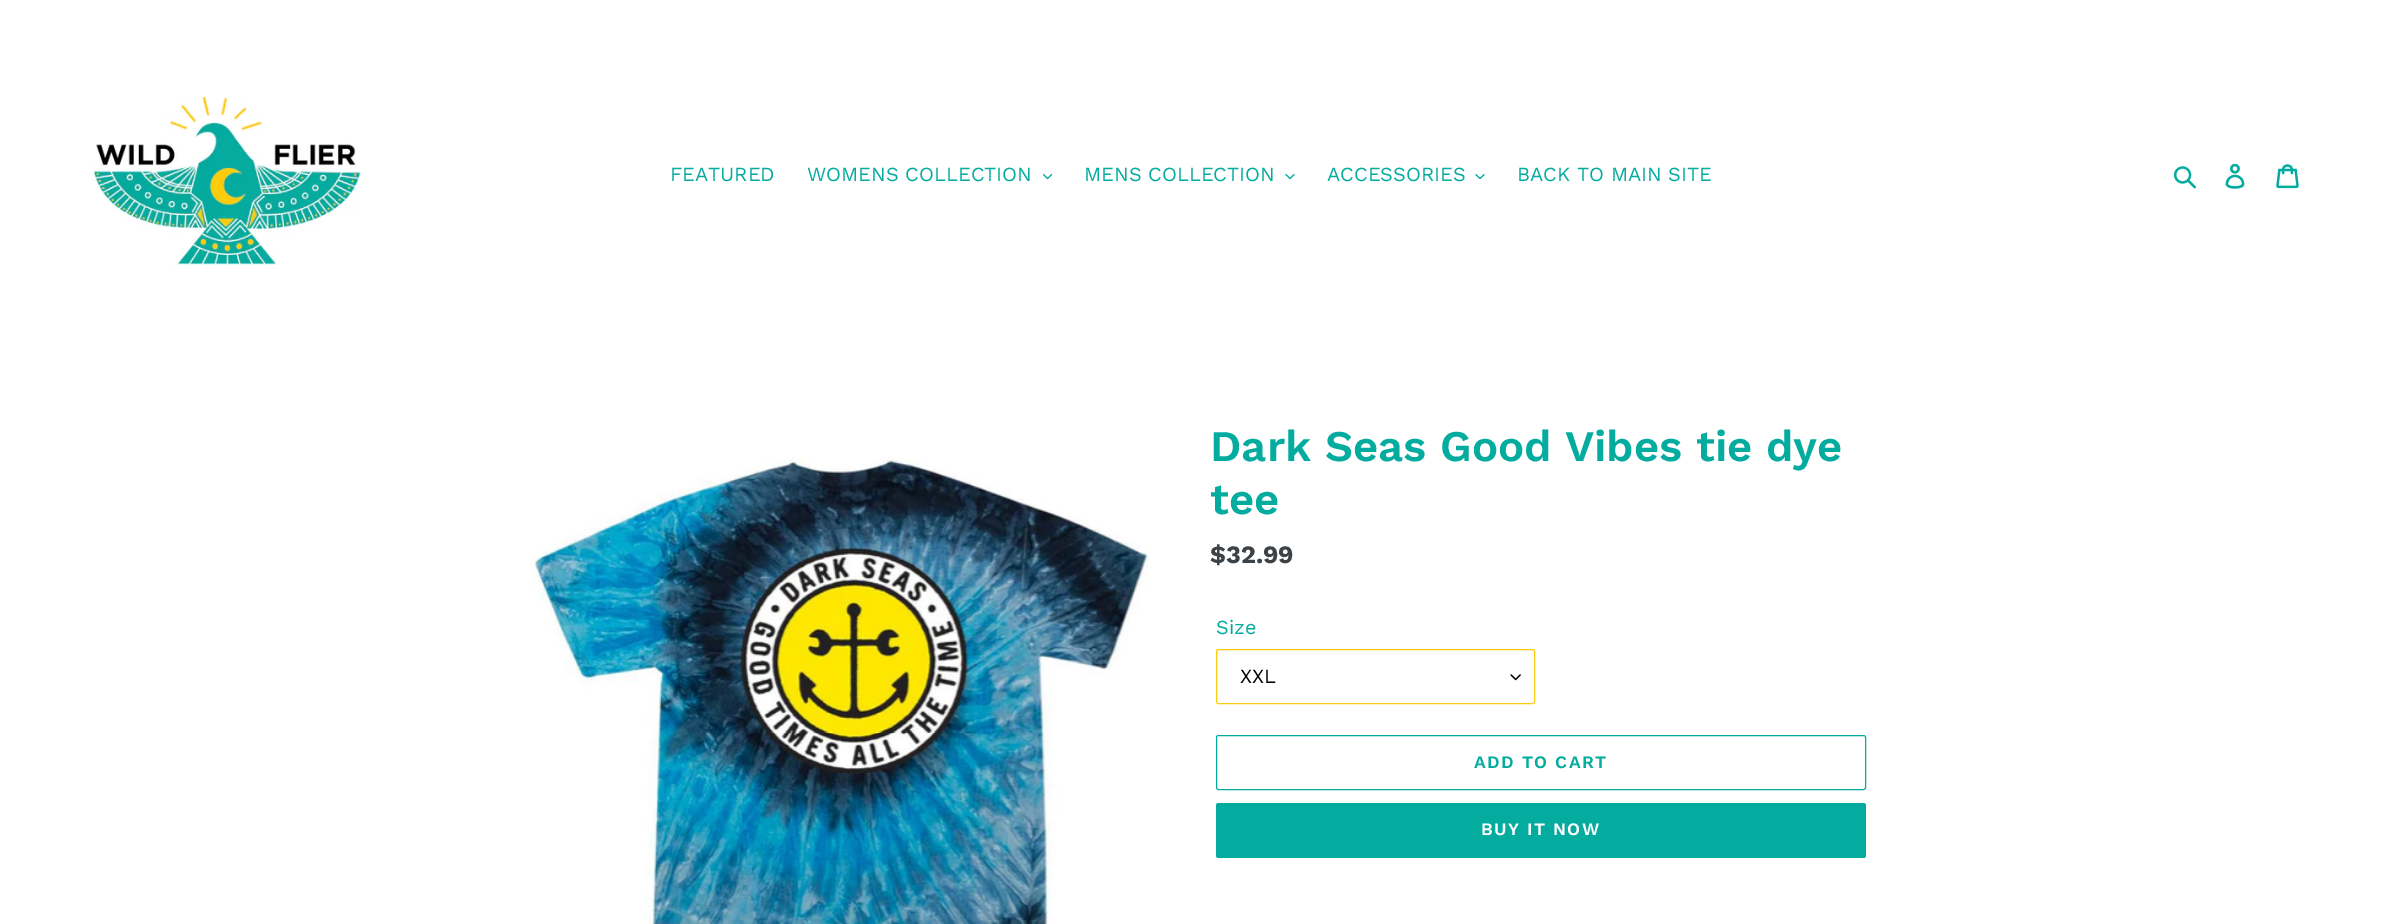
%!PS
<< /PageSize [2382 924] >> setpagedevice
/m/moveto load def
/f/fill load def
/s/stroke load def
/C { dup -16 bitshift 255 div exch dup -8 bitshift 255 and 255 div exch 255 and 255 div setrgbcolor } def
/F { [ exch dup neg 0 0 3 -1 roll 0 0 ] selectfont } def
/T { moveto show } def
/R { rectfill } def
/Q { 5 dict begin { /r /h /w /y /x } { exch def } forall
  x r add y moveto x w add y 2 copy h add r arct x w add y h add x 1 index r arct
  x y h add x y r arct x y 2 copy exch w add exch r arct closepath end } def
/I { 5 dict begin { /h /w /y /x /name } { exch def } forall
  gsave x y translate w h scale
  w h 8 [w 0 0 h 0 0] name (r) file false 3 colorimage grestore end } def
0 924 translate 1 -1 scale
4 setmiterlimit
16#FFFFFF C
0 0 2382 924 R
(1.rgb) 91 95 270 174 I
/WorkSans-Regular 20 F
16#04AB9F C
(FEATURED) 670 181 T
(WOMENS COLLECTION) 807 181 T
(2.rgb) 1043 173 10 7 I
(MENS COLLECTION) 1084 181 T
(3.rgb) 1285 174 10 6 I
(ACCESSORIES) 1327 181 T
(3.rgb) 1475 174 10 6 I
(BACK TO MAIN SITE) 1517 181 T
(4.rgb) 2173 166 23 23 I
(5.rgb) 2225 164 20 25 I
(6.rgb) 2276 164 23 25 I
(7.rgb) 530 458 619 466 I
/WorkSans-SemiBold 43.75 F
(Dark Seas Good Vibes tie dye) 1210 461 T
(tee) 1210 514 T
/WorkSans-Bold 25 F
16#3D4246 C
($32.99) 1210 563 T
/WorkSans-Regular 20 F
16#04AB9F C
(Size) 1216 634 T
(8.rgb) 1510 674 11 7 I
16#FECC0F C
1216.5 649.5 318 54 2 Q s
16#000000 C
(XXL) 1240 683 T
16#04AB9F C
1216.5 735.5 649 54 2 Q s
/WorkSans-SemiBold 17.5 F
1474 768 m 1.4 0 (ADD TO CART) ashow
1216 803 650 55 2.5 Q f
16#FFFFFF C
1481 835 m 1.4 0 (BUY IT NOW) ashow
showpage
